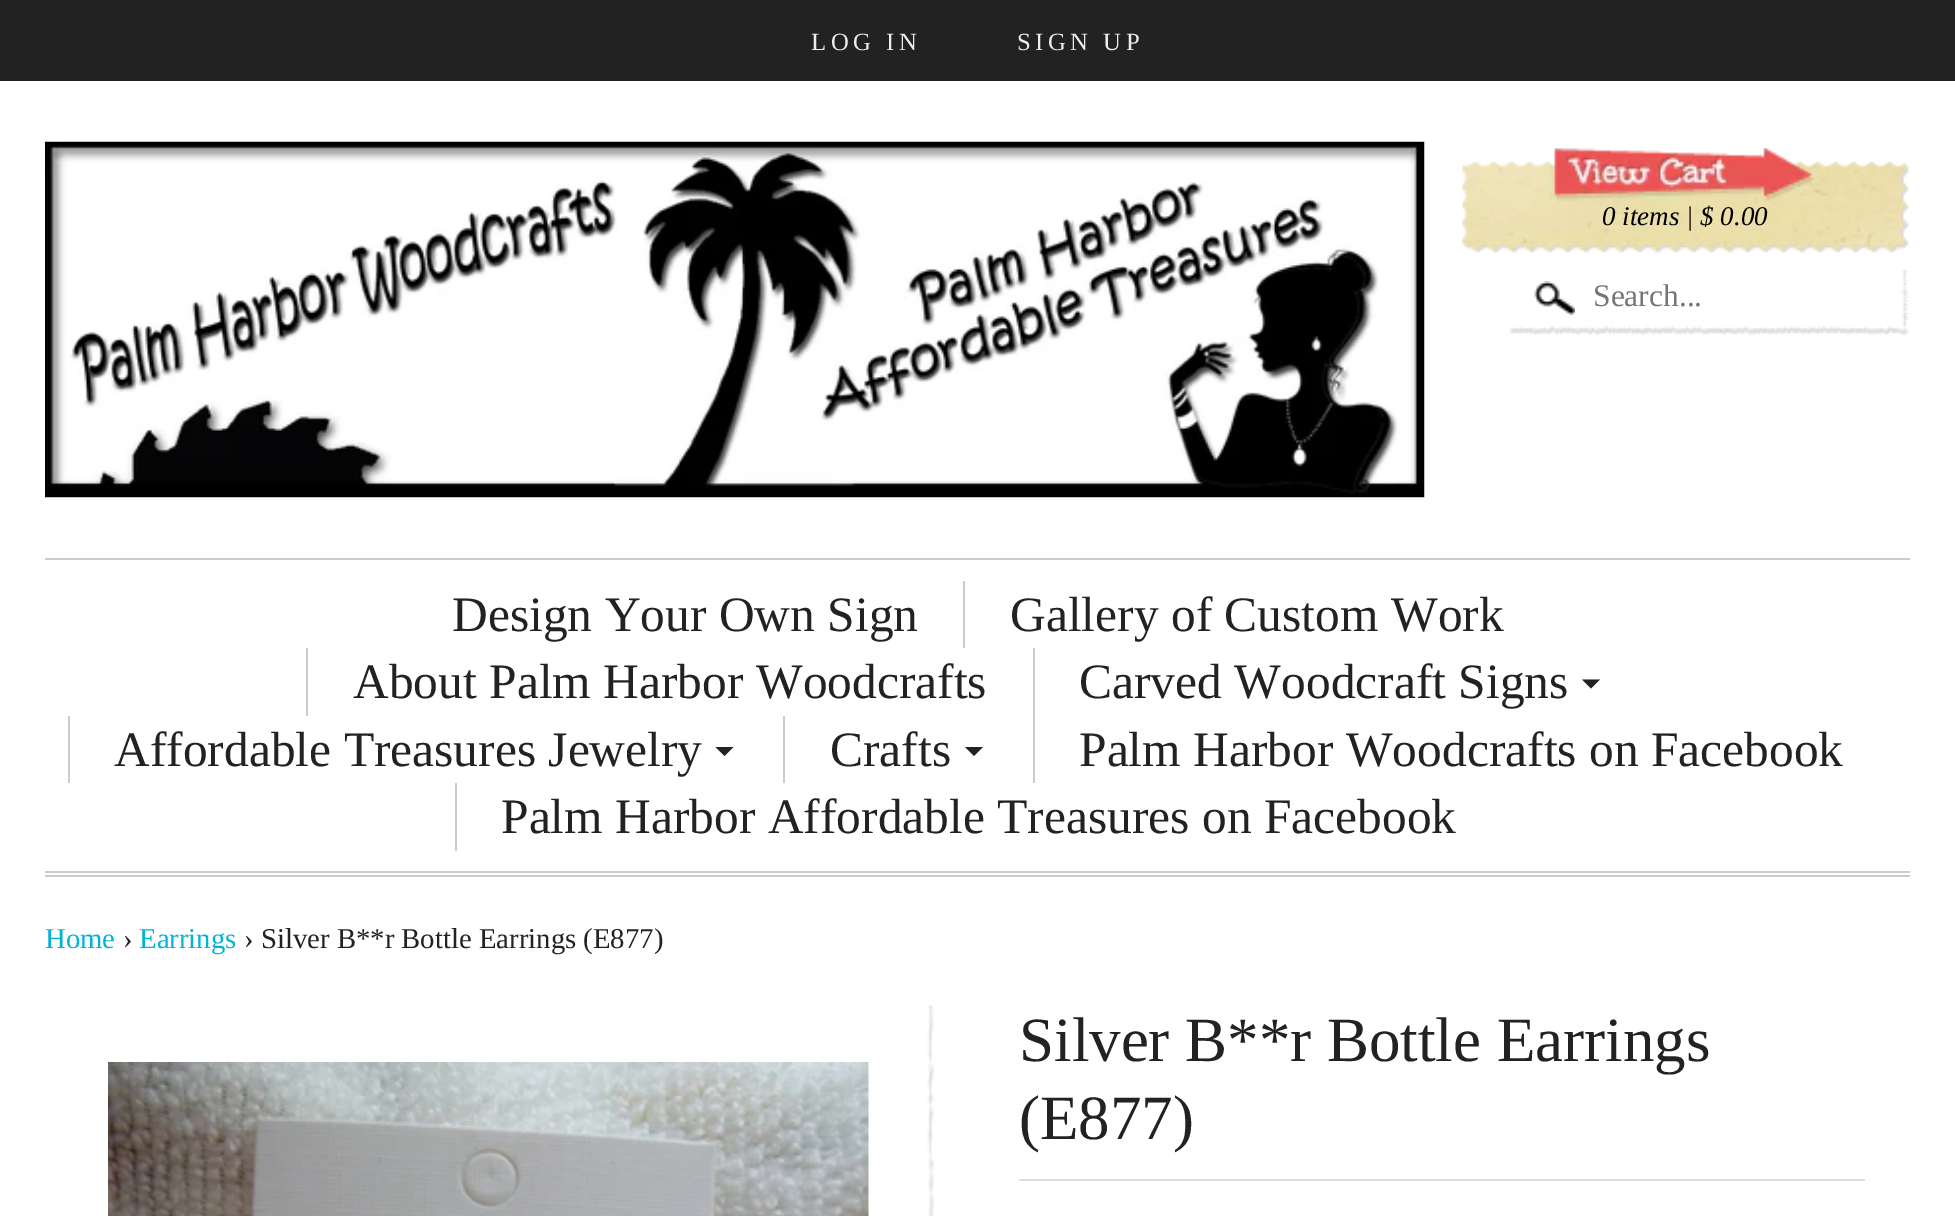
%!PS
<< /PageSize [1955 1216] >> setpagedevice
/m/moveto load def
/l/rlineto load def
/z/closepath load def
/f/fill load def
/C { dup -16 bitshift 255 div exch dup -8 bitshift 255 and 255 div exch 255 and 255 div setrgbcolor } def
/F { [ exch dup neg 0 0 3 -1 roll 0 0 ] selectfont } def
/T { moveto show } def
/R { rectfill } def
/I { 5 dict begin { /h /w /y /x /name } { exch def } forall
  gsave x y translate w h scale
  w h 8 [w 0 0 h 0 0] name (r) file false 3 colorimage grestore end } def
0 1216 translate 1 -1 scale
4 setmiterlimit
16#FFFFFF C
0 0 1955 1216 R
16#222222 C
0 0 1955 81 R
/LiberationSerif-Regular 24.75 F
16#EDEDED C
811 50 m 4.5 0 (LOG IN) ashow
1017 50 m 4.5 0 (SIGN UP) ashow
(1.rgb) 45 141 1380 357 I
(2.rgb) 1462 148 447 105 I
/LiberationSerif-Italic 27 F
16#000000 C
(0 items | $ 0.00) 1602 225 T
(3.rgb) 1509 269 400 66 I
(4.rgb) 1534 281 41 34 I
/LiberationSerif-Regular 31.5 F
16#757575 C
(Search...) 1593 306 T
16#CCCCCC C
45 558 1865 2 R
45 871 1865 2 R
45 875 1865 2 R
/LiberationSerif-Regular 49.5 F
16#222222 C
(Design Your Own Sign) 452 631 T
16#CCCCCC C
963 581 2 67 R
16#222222 C
(Gallery of Custom Work) 1010 631 T
16#CCCCCC C
306 648 2 68 R
16#222222 C
(About Palm Harbor Woodcrafts) 353 698 T
16#CCCCCC C
1033 648 2 135 R
16#222222 C
(Carved Woodcraft Signs) 1079 698 T
1582 679.5 m 18 0 l -9 9 l z f
16#CCCCCC C
68 716 2 67 R
16#222222 C
(Affordable Treasures Jewelry) 114 766 T
715.5 747 m 18 0 l -9 9 l z f
16#CCCCCC C
783 716 2 67 R
16#222222 C
(Crafts) 830 766 T
965 747 m 18 0 l -9 9 l z f
(Palm Harbor Woodcrafts on Facebook) 1079 766 T
16#CCCCCC C
455 783 2 68 R
16#222222 C
(Palm Harbor Affordable Treasures on Facebook) 501 833 T
/LiberationSerif-Regular 28.75 F
16#00B4D4 C
(Home) 45 948 T
16#222222 C
(›) 123 948 T
16#00B4D4 C
(Earrings) 139 948 T
16#222222 C
(› Silver B**r Bottle Earrings \(E877\)) 244 948 T
(5.rgb) 927 1005 7 211 I
(6.rgb) 108 1062 761 154 I
16#DDDDDD C
1019 1179 846 2 R
/LiberationSerif-Regular 63 F
16#222222 C
(Silver B**r Bottle Earrings) 1019 1061 T
(\(E877\)) 1019 1139 T
showpage
